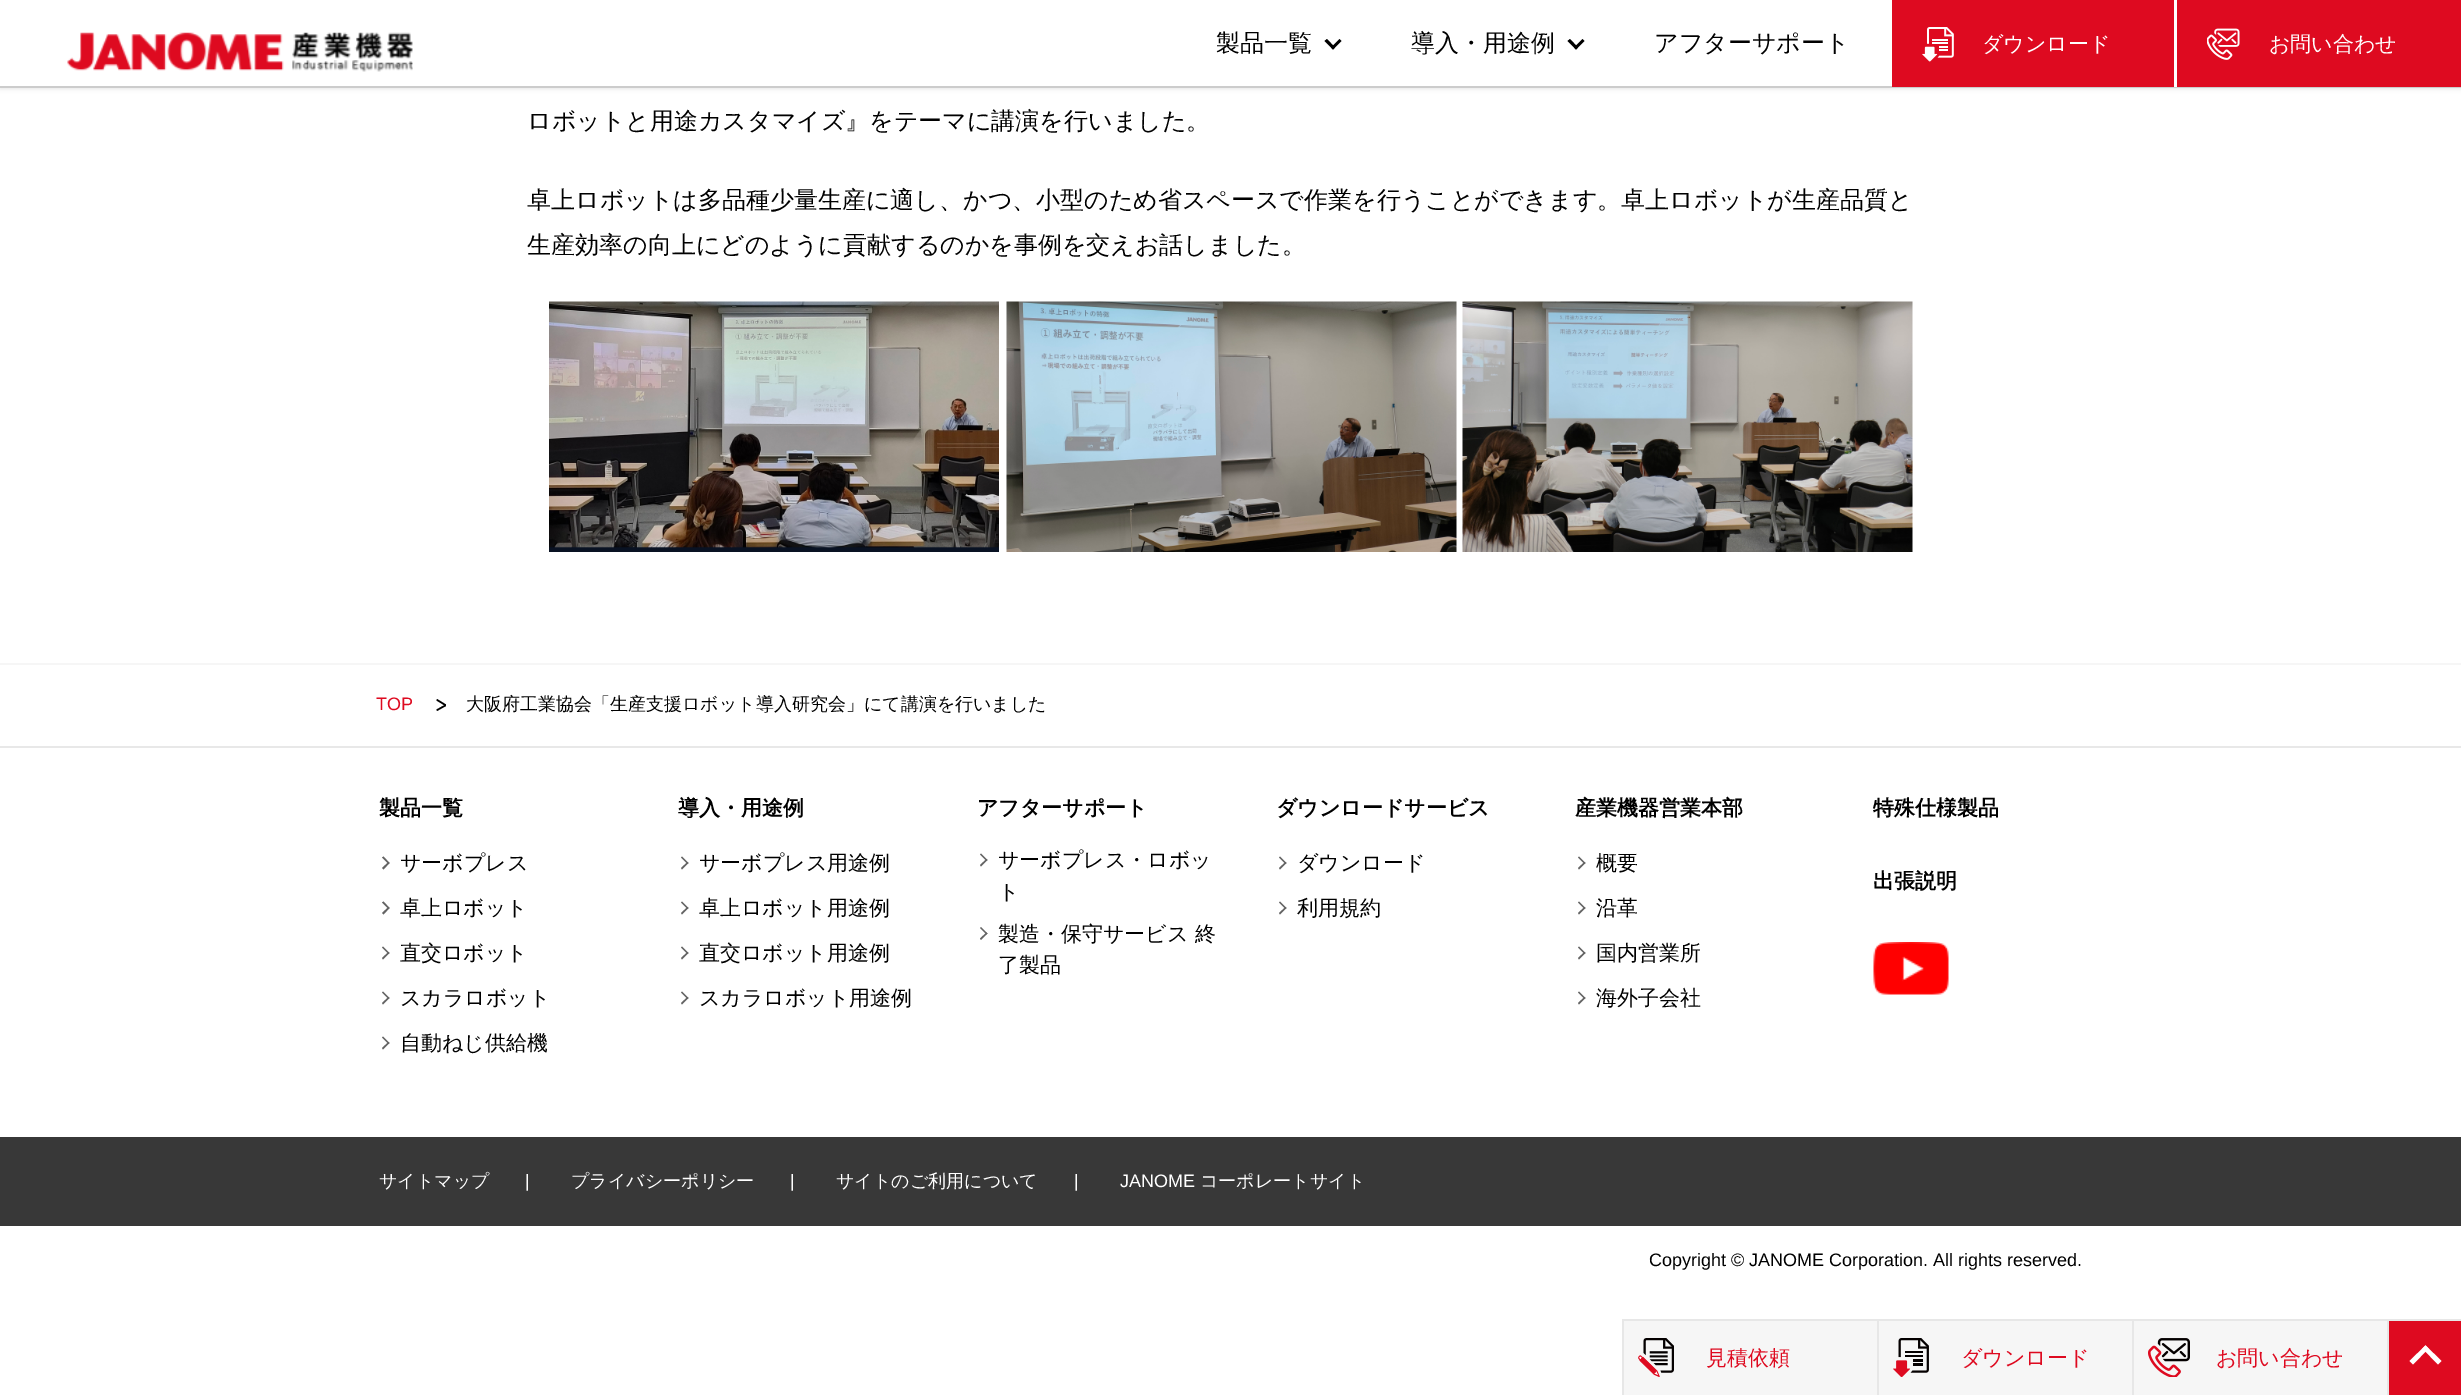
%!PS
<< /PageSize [2461 1395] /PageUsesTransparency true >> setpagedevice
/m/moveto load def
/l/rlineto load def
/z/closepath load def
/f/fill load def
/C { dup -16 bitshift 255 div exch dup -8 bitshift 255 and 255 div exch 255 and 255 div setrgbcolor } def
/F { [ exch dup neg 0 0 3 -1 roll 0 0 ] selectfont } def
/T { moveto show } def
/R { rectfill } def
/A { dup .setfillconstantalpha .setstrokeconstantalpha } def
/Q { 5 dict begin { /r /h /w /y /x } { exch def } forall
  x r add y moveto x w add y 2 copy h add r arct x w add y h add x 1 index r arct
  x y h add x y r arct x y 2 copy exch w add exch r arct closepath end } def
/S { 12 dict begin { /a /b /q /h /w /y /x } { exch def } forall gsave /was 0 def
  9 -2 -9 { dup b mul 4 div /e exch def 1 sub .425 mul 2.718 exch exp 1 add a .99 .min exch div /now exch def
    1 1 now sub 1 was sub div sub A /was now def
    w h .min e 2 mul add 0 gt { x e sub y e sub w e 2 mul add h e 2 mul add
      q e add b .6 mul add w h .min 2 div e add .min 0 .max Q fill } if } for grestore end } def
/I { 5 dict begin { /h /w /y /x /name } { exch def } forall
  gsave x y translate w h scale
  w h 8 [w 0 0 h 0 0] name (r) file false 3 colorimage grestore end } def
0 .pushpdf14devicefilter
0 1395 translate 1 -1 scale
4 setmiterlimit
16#FFFFFF C
0 0 2461 1395 R
16#000000 C
0 2 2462 87 0 2 .1 S
16#FFFFFF C
0 0 1892 86 R
16#CCCCCC C
0 86 2461 2 R
(1.rgb) 67 32 346 40 I
/WenQuanYiZenHei-Medium 24 F
16#000000 C
(製品一覧) 1216 51 T
1341.5 41 m -8.5 8.5 l -2 -2 l 8.5 -8.5 l z f
1335 47.5 m -2 2 l -8.5 -8.5 l 2.5 -2 l z f
(導入・用途例) 1411 51 T
1584.5 41 m -8.5 8.5 l -2 -2 l 8.5 -8.5 l z f
1578 47.5 m -2 2 l -8.5 -8.5 l 2.5 -2 l z f
(アフターサポート) 1654 51 T
16#DE0A20 C
1892 0 282 87 R
(2.rgb) 1922 27 32 35 I
16#FFFFFF C
2174 0 3 87 R
/WenQuanYiZenHei-Medium 21 F
(ダウンロード) 1982 51 T
16#DE0A20 C
2177 0 284 87 R
(3.rgb) 2207 28 33 32 I
16#FFFFFF C
(お問い合わせ) 2269 51 T
/WenQuanYiZenHei-Medium 24 F
16#000000 C
(ロボットと用途カスタマイズ』をテーマに講演を行いました。) 527 129 T
(卓上ロボットは多品種少量生産に適し、かつ、小型のため省スペースで作業を行うことができます。卓上ロボットが生産品質と) 527 208 T
(生産効率の向上にどのように貢献するのかを事例を交えお話しました。) 527 253 T
(4.rgb) 549 301 450 251 I
(5.rgb) 1006 301 451 251 I
(6.rgb) 1462 301 451 251 I
16#F6F6F6 C
0 663 2461 2 R
16#E8E8E8 C
0 746 2461 2 R
/LiberationSans-Regular 18 F
16#DE0A20 C
(TOP) 376 710 T
16#000000 C
437 699 m 9 5.5 l -.5 1.5 l -9 -5.5 l z f
436.5 709.5 m 9 -5 l .5 1.5 l -9 5 l z f
/WenQuanYiZenHei-Medium 18 F
(大阪府工業協会「生産支援ロボット導入研究会」にて講演を行いました) 466 710 T
/WenQuanYiZenHei-Bold 21 F
(製品一覧) 379 815 T
16#646464 C
383.5 856.5 m 6 6.5 l -1 1 l -6.5 -6.5 l z f
388.5 862 m 1 1 l -6 6.5 l -1.5 -1.5 l z f
/WenQuanYiZenHei-Medium 21 F
16#000000 C
(サーボプレス) 400 870 T
16#646464 C
383.5 901.5 m 6 6.5 l -1 1 l -6.5 -6.5 l z f
388.5 907 m 1 1 l -6 6.5 l -1.5 -1.5 l z f
16#000000 C
(卓上ロボット) 400 915 T
16#646464 C
383 946.5 m 6.5 6.5 l -1 1 l -6.5 -6.5 l z f
388.5 952 m 1 1 l -6.5 6.5 l -1 -1.5 l z f
16#000000 C
(直交ロボット) 400 960 T
16#646464 C
383 991.5 m 6.5 6.5 l -1 1 l -6.5 -6.5 l z f
388.5 997 m 1 1 l -6.5 6.5 l -1 -1.5 l z f
16#000000 C
(スカラロボット) 400 1005 T
16#646464 C
383 1036.5 m 6.5 6.5 l -1 1 l -6.5 -6.5 l z f
388.5 1042 m 1 1 l -6.5 6.5 l -1 -1.5 l z f
16#000000 C
(自動ねじ供給機) 400 1050 T
/WenQuanYiZenHei-Bold 21 F
(導入・用途例) 678 815 T
16#646464 C
682 856.5 m 6.5 6.5 l -1 1 l -6.5 -6.5 l z f
687.5 862 m 1 1 l -6.5 6.5 l -1 -1.5 l z f
/WenQuanYiZenHei-Medium 21 F
16#000000 C
(サーボプレス用途例) 699 870 T
16#646464 C
682 901.5 m 6.5 6.5 l -1 1 l -6.5 -6.5 l z f
687.5 907 m 1 1 l -6.5 6.5 l -1 -1.5 l z f
16#000000 C
(卓上ロボット用途例) 699 915 T
16#646464 C
682 946.5 m 6.5 6.5 l -1 1 l -6.5 -6.5 l z f
687.5 952 m 1 1 l -6.5 6.5 l -1 -1.5 l z f
16#000000 C
(直交ロボット用途例) 699 960 T
16#646464 C
682 991.5 m 6.5 6.5 l -1 1 l -6.5 -6.5 l z f
687.5 997 m 1 1 l -6.5 6.5 l -1 -1.5 l z f
16#000000 C
(スカラロボット用途例) 699 1005 T
/WenQuanYiZenHei-Bold 21 F
(アフターサポート) 977 815 T
16#646464 C
981 853.5 m 6.5 6.5 l -1 1 l -6.5 -6.5 l z f
986.5 859 m 1 1 l -6.5 6.5 l -1 -1.5 l z f
/WenQuanYiZenHei-Medium 21 F
16#000000 C
(サーボプレス・ロボッ) 998 867 T
(ト) 998 899 T
16#646464 C
981 927 m 6.5 6.5 l -1 1 l -6.5 -6.5 l z f
986.5 932.5 m 1 1 l -6.5 6.5 l -1 -1.5 l z f
16#000000 C
(製造・保守サービス 終) 998 941 T
(了製品) 998 972 T
/WenQuanYiZenHei-Bold 21 F
(ダウンロードサービス) 1276 815 T
16#646464 C
1280 856.5 m 6.5 6.5 l -1 1 l -6.5 -6.5 l z f
1285.5 862 m 1 1 l -6.5 6.5 l -1 -1.5 l z f
/WenQuanYiZenHei-Medium 21 F
16#000000 C
(ダウンロード) 1297 870 T
16#646464 C
1280 901.5 m 6.5 6.5 l -1 1 l -6.5 -6.5 l z f
1285.5 907 m 1 1 l -6.5 6.5 l -1 -1.5 l z f
16#000000 C
(利用規約) 1297 915 T
/WenQuanYiZenHei-Bold 21 F
(産業機器営業本部) 1575 815 T
16#646464 C
1579 856.5 m 6.5 6.5 l -1 1 l -6.5 -6.5 l z f
1584.5 862 m 1 1 l -6.5 6.5 l -1 -1.5 l z f
/WenQuanYiZenHei-Medium 21 F
16#000000 C
(概要) 1596 870 T
16#646464 C
1579 901.5 m 6.5 6.5 l -1 1 l -6.5 -6.5 l z f
1584.5 907 m 1 1 l -6.5 6.5 l -1 -1.5 l z f
16#000000 C
(沿革) 1596 915 T
16#646464 C
1579 946.5 m 6.5 6.5 l -1 1 l -6.5 -6.5 l z f
1584.5 952 m 1 1 l -6.5 6.5 l -1 -1.5 l z f
16#000000 C
(国内営業所) 1596 960 T
16#646464 C
1579 991.5 m 6.5 6.5 l -1 1 l -6.5 -6.5 l z f
1584.5 997 m 1 1 l -6.5 6.5 l -1 -1.5 l z f
16#000000 C
(海外子会社) 1596 1005 T
/WenQuanYiZenHei-Bold 21 F
(特殊仕様製品) 1873 815 T
(出張説明) 1873 888 T
(7.rgb) 1873 942 76 53 I
16#383838 C
0 1137 2461 89 R
/WenQuanYiZenHei-Medium 18 F
16#FFFFFF C
(サイトマップ) 379 1187 T
/LiberationSans-Regular 18 F
(|) 525 1187 T
/WenQuanYiZenHei-Medium 18 F
(プライバシーポリシー) 571 1187 T
/LiberationSans-Regular 18 F
(|) 790 1187 T
/WenQuanYiZenHei-Medium 18 F
(サイトのご利用について) 836 1187 T
/LiberationSans-Regular 18 F
(|) 1074 1187 T
(JANOME) 1120 1187 T
/WenQuanYiZenHei-Medium 18 F
(コーポレートサイト) 1200 1187 T
/LiberationSans-Regular 18 F
16#000000 C
(Copyright © JANOME Corporation. All rights reserved.) 1649 1266 T
16#F6F6F6 C
1624 1321 253 74 R
(8.rgb) 1638 1338 36 39 I
16#E7E7E7 C
1622 1319 839 2 R
1622 1319 2 76 R
/WenQuanYiZenHei-Medium 21 F
16#DE0A20 C
(見積依頼) 1706 1365 T
16#F6F6F6 C
1879 1321 253 74 R
(9.rgb) 1893 1338 36 39 I
16#E7E7E7 C
1877 1319 2 76 R
16#DE0A20 C
(ダウンロード) 1961 1365 T
16#F6F6F6 C
2134 1321 253 74 R
(10.rgb) 2148 1338 42 39 I
16#E7E7E7 C
2132 1319 2 76 R
16#DE0A20 C
(お問い合わせ) 2216 1365 T
2389 1321 72 74 R
16#E7E7E7 C
2387 1319 2 76 R
16#FFFFFF C
2425.5 1345.5 m 16 15.5 l -3.5 3.5 l -15.5 -16 l z f
2425.5 1345.5 m 3 3 l -15.5 16 l -3.5 -3.5 l z f
.poppdf14devicefilter showpage
